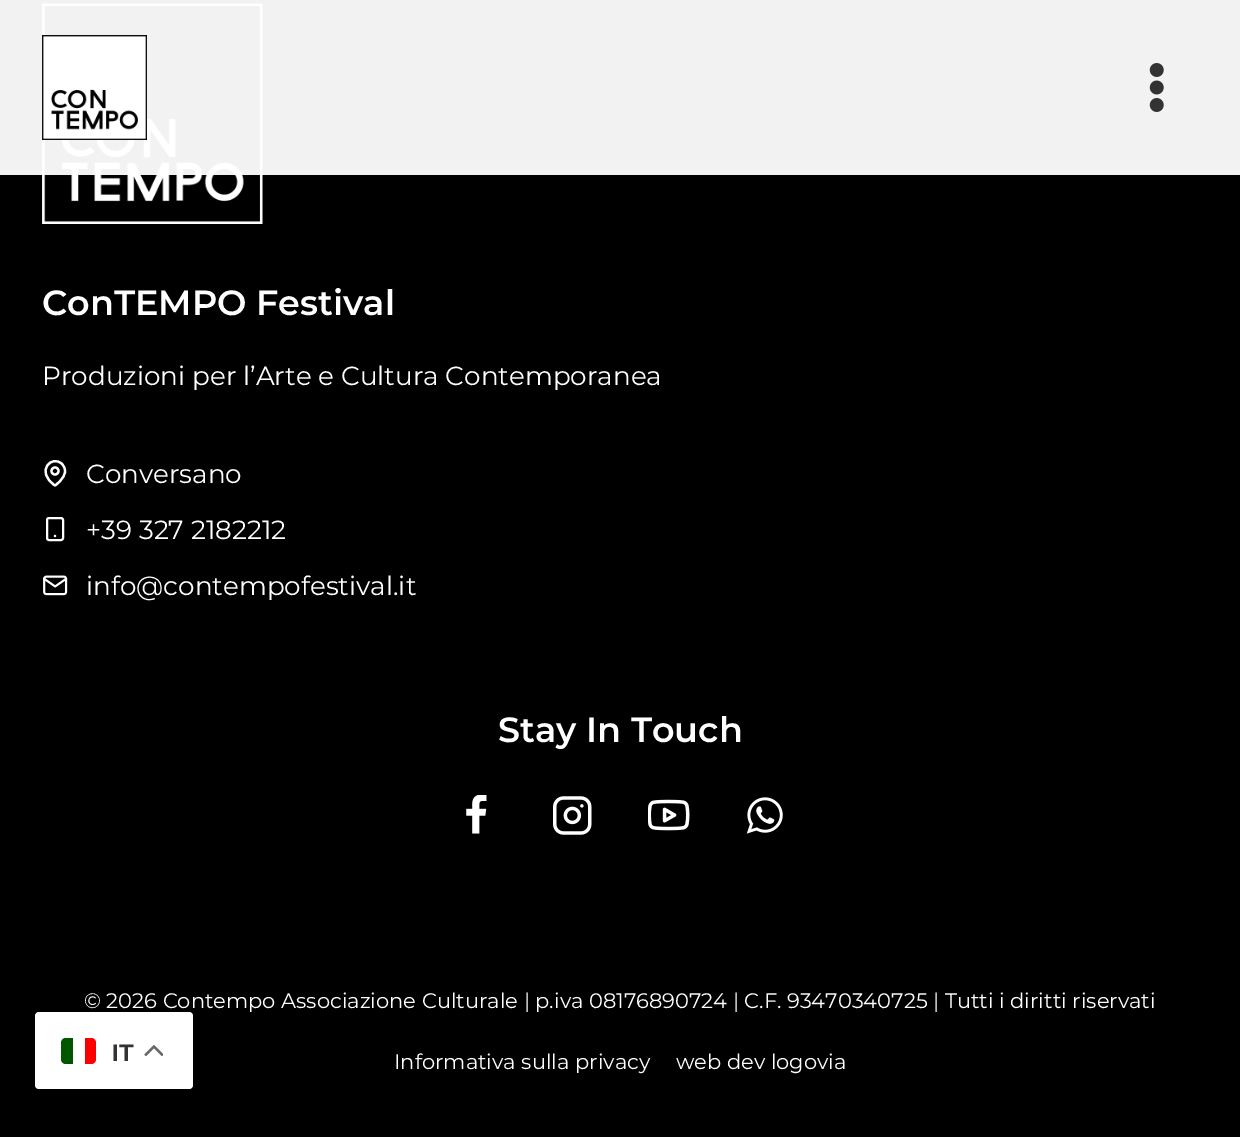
%!PS
<< /PageSize [1240 1137] /PageUsesTransparency true >> setpagedevice
/m/moveto load def
/l/rlineto load def
/c/rcurveto load def
/z/closepath load def
/f/fill load def
/s/stroke load def
/w/setlinewidth load def
/C { dup -16 bitshift 255 div exch dup -8 bitshift 255 and 255 div exch 255 and 255 div setrgbcolor } def
/F { [ exch dup neg 0 0 3 -1 roll 0 0 ] selectfont } def
/T { moveto show } def
/R { rectfill } def
/A { dup .setfillconstantalpha .setstrokeconstantalpha } def
/O { newpath 0 360 arc closepath } def
/Q { 5 dict begin { /r /h /w /y /x } { exch def } forall
  x r add y moveto x w add y 2 copy h add r arct x w add y h add x 1 index r arct
  x y h add x y r arct x y 2 copy exch w add exch r arct closepath end } def
/I { 5 dict begin { /h /w /y /x /name } { exch def } forall
  gsave x y translate w h scale
  w h 8 [w 0 0 h 0 0] name (r) file false 3 colorimage grestore end } def
0 .pushpdf14devicefilter
0 1137 translate 1 -1 scale
4 setmiterlimit
16#000000 C
0 0 1240 1137 R
(3.rgb) 42 3 221 221 I
0.95 A
16#FFFFFF C
0 0 1240 175 R
1 A
(1.rgb) 42 35 105 105 I
(2.rgb) 1149 63 15 49 I
/Montserrat-SemiBold 35 F
(ConTEMPO Festival) 42 315 T
/Montserrat-Regular 26.25 F
(Produzioni per l’Arte e Cultura Contemporanea) 42 385 T
2.2 w
1 setlinecap
1 setlinejoin
65 471 m 0 8 -10 14.5 -10 14.5 c -20.5 -14 -3 -31.5 7 -21.5 c 2 2 3 4.5 3 7 c z s
0 setlinecap
0 setlinejoin
55 471 3.5 O s
(Conversano) 86 483 T
2 w
47 518 16 22 2 Q s
2.2 w
1 setlinecap
1 setlinejoin
55 536 m 0 0 l s
(+39 327 2182212) 86 539 T
(4.rgb) 43 575 25 21 I
(info@contempofestival.it) 86 595 T
/Montserrat-SemiBold 35 F
(Stay In Touch) 498 742 T
(5.rgb) 466 795 21 39 I
(6.rgb) 553 796 39 39 I
(7.rgb) 648 799 42 32 I
(8.rgb) 746 797 37 37 I
/Montserrat-Regular 21 F
(© 2026 Contempo Associazione Culturale | p.iva 08176890724 | C.F. 93470340725 | Tutti i diritti riservati) 84 1008 T
(Informativa sulla privacy) 394 1069 T
(web dev logovia) 676 1069 T
35 1012 158 77 4 Q f
16#005700 C
66 1038 m 7 0 l 0 26 l -7 0 l -3 0 -5 -2 -5 -5 c 0 -16 l 0 -3 2 -5 5 -5 c z f
16#FC0000 C
85 1038 m 6 0 l 3 0 5 2 5 5 c 0 16 l 0 3 -2 5 -5 5 c -6 0 l z f
/LiberationSans-Bold 24 F
16#333333 C
(IT) 112 1061 T
(9.rgb) 144 1045 19 12 I
.poppdf14devicefilter showpage
